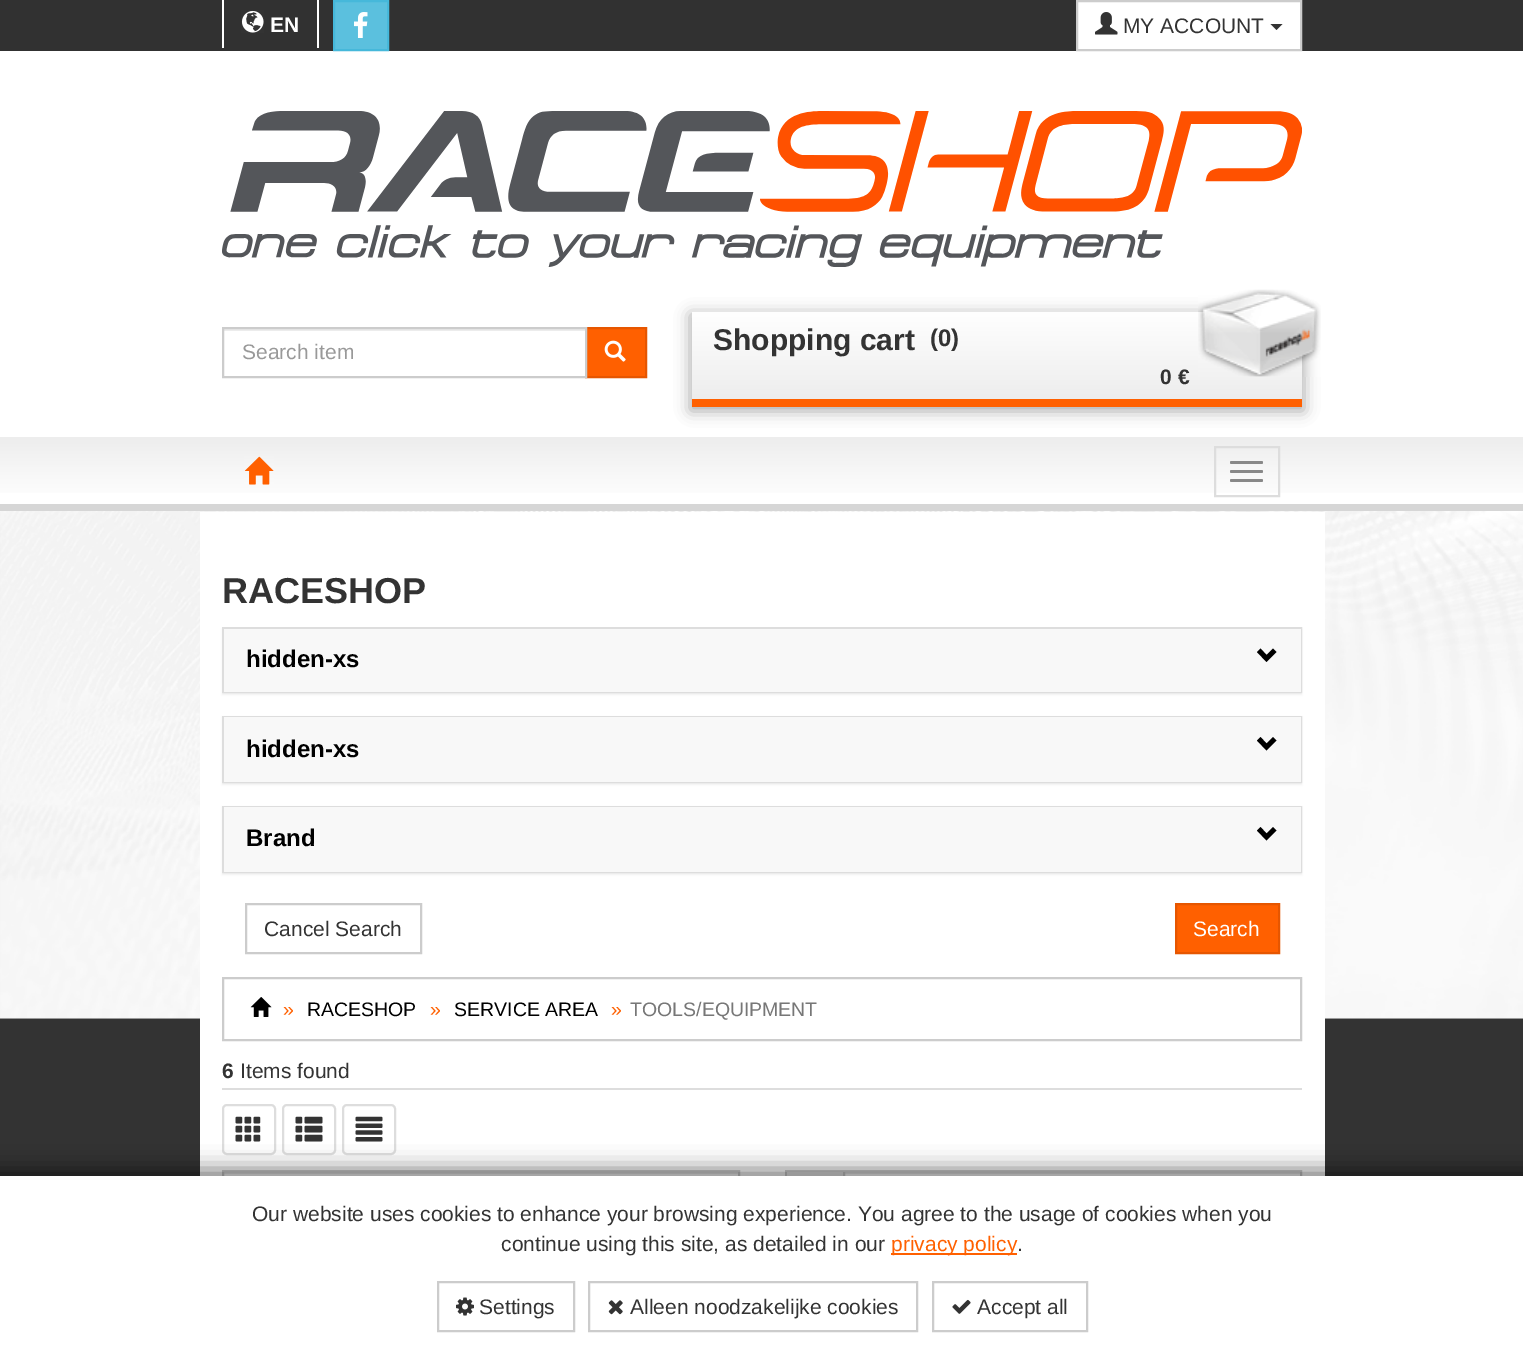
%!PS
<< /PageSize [1523 1361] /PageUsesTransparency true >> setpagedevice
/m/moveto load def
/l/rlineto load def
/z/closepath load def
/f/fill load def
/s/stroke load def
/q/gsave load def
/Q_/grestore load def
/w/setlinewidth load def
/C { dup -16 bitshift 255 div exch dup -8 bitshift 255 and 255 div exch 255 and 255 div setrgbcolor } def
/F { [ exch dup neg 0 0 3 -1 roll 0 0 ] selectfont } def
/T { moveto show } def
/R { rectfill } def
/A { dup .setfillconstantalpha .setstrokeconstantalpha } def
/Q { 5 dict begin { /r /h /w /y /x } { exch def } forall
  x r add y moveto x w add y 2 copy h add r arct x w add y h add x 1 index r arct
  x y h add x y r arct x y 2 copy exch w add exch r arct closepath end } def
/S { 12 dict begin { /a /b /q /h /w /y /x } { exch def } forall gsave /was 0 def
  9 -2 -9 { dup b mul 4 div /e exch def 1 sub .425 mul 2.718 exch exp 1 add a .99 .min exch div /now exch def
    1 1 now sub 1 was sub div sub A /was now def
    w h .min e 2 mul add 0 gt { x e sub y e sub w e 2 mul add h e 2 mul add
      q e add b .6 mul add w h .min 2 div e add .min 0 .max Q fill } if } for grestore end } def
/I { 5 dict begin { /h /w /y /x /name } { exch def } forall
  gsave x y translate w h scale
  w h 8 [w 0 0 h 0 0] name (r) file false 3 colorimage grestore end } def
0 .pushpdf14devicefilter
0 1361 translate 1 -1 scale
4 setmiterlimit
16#FFFFFF C
0 0 1523 1361 R
16#313131 C
0 0 1523 51 R
16#FFFFFF C
317 0 2 48 R
222 0 2 48 R
(1.rgb) 241 10 23 23 I
/LiberationSans-Bold 21 F
(EN) 270 32 T
16#5BC0DE C
334 1 m 54 0 l 0 49 l -54 0 l z q f Q_
16#46B8DA C
2 w
s
(2.rgb) 354 12 14 26 I
16#FFFFFF C
1077 1 m 224 0 l 0 49 l -224 0 l z q f Q_
16#CCCCCC C
s
(3.rgb) 1095 12 23 23 I
/LiberationSans-Regular 21 F
16#333333 C
(MY ACCOUNT) 1123 33 T
1270.5 24 m 12 0 l -6 6 l z f
(4.rgb) 222 111 1080 156 I
16#ECECEC C
224 329 361 2 R
16#FF6000 C
586 328 m 60 0 l 0 49 l -60 0 l z q f Q_
16#E65600 C
s
16#CCCCCC C
223 328 363 49 rectstroke
16#999999 C
(Search item) 242 359 T
(5.rgb) 604 340 22 22 I
16#AAAAAA C
690 314 614 97 0 7.5 1 S
q 692 312 m 610 0 l 0 87 l -610 0 l z clip newpath
<< /ShadingType 2 /ColorSpace /DeviceRGB /Coords [997 312 997 399] /Extend [true true] /Function << /FunctionType 2 /Domain [0 1] /C0 [1 1 1] /C1 [.929 .929 .929] /N 1 >> >> shfill Q_
16#FF6000 C
692 399 610 8 R
/LiberationSans-Bold 30 F
16#333333 C
(Shopping cart) 713 350 T
/LiberationSans-Bold 24 F
(\(0\)) 930 346 T
/LiberationSans-Bold 21 F
(0 €) 1160 384 T
(6.rgb) 1198 289 123 88 I
q 0 437 m 1523 0 l 0 56 l -1523 0 l z clip newpath
<< /ShadingType 2 /ColorSpace /DeviceRGB /Coords [762 436 762 504] /Extend [true true] /Function << /FunctionType 3 /Domain [0 1] /Functions [<< /FunctionType 2 /Domain [0 1] /C0 [.929 .929 .929] /C1 [.965 .965 .965] /N 1 >> << /FunctionType 2 /Domain [0 1] /C0 [.965 .965 .965] /C1 [1 1 1] /N 1 >> << /FunctionType 2 /Domain [0 1] /C0 [1 1 1] /C1 [1 1 1] /N 1 >>] /Bounds [.47 .99] /Encode [0 1 0 1 0 1] >> >> shfill Q_
16#D6D6D6 C
0 504 1523 7 R
(7.rgb) 244 456 30 29 I
16#DDDDDD C
1215 447 64 49 rectstroke
16#888888 C
1230 461 33 3 1.5 Q f
1230 470 33 3 1.5 Q f
1230 479 33 3 1.5 Q f
16#333333 C
0 1018 1523 158 R
(8.rgb) 0 511 1523 508 I
16#FFFFFF C
200 512 1125 664 R
/LiberationSans-Bold 36 F
16#333333 C
(RACESHOP) 222 603 T
16#000000 C
222 629 1080 66 0 1 .05 S
16#DDDDDD C
223 628 1078 64 rectstroke
16#F8F8F8 C
224 629 1077 63 R
/LiberationSans-Bold 24 F
16#000000 C
(hidden-xs) 246 667 T
1276.5 652 m -10 10 l -9.5 -10 l 3.5 -3.5 l 6 6.5 l 6.5 -6.5 l z f
222 717 1080 68 0 1 .05 S
16#DDDDDD C
223 717 1078 65 rectstroke
16#F8F8F8 C
224 717 1077 65 R
16#000000 C
(hidden-xs) 246 757 T
1276.5 740.5 m -10 10 l -9.5 -10 l 3.5 -3.5 l 6 6.5 l 6.5 -6.5 l z f
222 807 1080 68 0 1 .05 S
16#DDDDDD C
223 807 1078 65 rectstroke
16#F8F8F8 C
224 807 1077 65 R
16#000000 C
(Brand) 246 846 T
1276.5 830.5 m -10 10 l -9.5 -10 l 3.5 -3.5 l 6 6.5 l 6.5 -6.5 l z f
16#CCCCCC C
246 904 175 49 rectstroke
/LiberationSans-Regular 21 F
16#333333 C
(Cancel Search) 264 936 T
16#FF6000 C
1176 904 m 103 0 l 0 49 l -103 0 l z q f Q_
16#E65600 C
s
16#FFFFFF C
(Search) 1193 936 T
16#CCCCCC C
223 978 1078 62 rectstroke
(9.rgb) 250 997 22 20 I
/LiberationSans-Regular 19.5 F
16#FF6000 C
(») 283 1016 T
16#000000 C
(RACESHOP) 307 1016 T
16#FF6000 C
(») 430 1016 T
16#000000 C
(SERVICE AREA) 454 1016 T
16#FF6000 C
(») 611 1016 T
16#777777 C
(TOOLS/EQUIPMENT) 630 1016 T
/LiberationSans-Bold 21 F
16#333333 C
(6) 222 1078 T
/LiberationSans-Regular 21 F
(Items found) 240 1078 T
16#DDDDDD C
222 1088 1080 2 R
223 1105 52 49 4 Q s
(10.rgb) 235 1116 26 26 I
283 1105 52 49 4 Q s
(11.rgb) 295 1116 28 26 I
343 1105 52 49 4 Q s
(12.rgb) 355 1116 28 26 I
16#ECECEC C
224 1172 514 2 R
16#CCCCCC C
223 1171 516 49 rectstroke
16#EEEEEE C
787 1172 56 4 R
16#CCCCCC C
785 1170 58 2 R
785 1170 2 6 R
16#ECECEC C
845 1172 456 2 R
16#CCCCCC C
844 1171 457 49 rectstroke
16#000000 C
-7 1169 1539 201 0 11 .5 S
16#FFFFFF C
0 1176 1523 185 R
16#333333 C
(Our website uses cookies to enhance your browsing experience. You agree to the usage of cookies when you) 252 1221 T
(continue using this site, as detailed in our) 501 1251 T
16#FF6000 C
891 1253 126 2 R
(privacy policy) 891 1251 T
16#333333 C
(.) 1017 1251 T
16#CCCCCC C
438 1282 136 49 rectstroke
(13.rgb) 456 1297 18 19 I
16#333333 C
(Settings) 479 1314 T
16#CCCCCC C
589 1282 328 49 rectstroke
(14.rgb) 608 1300 15 15 I
16#333333 C
(Alleen noodzakelijke cookies) 630 1314 T
16#CCCCCC C
933 1282 154 49 rectstroke
(15.rgb) 952 1299 19 15 I
16#333333 C
(Accept all) 977 1314 T
.poppdf14devicefilter showpage
